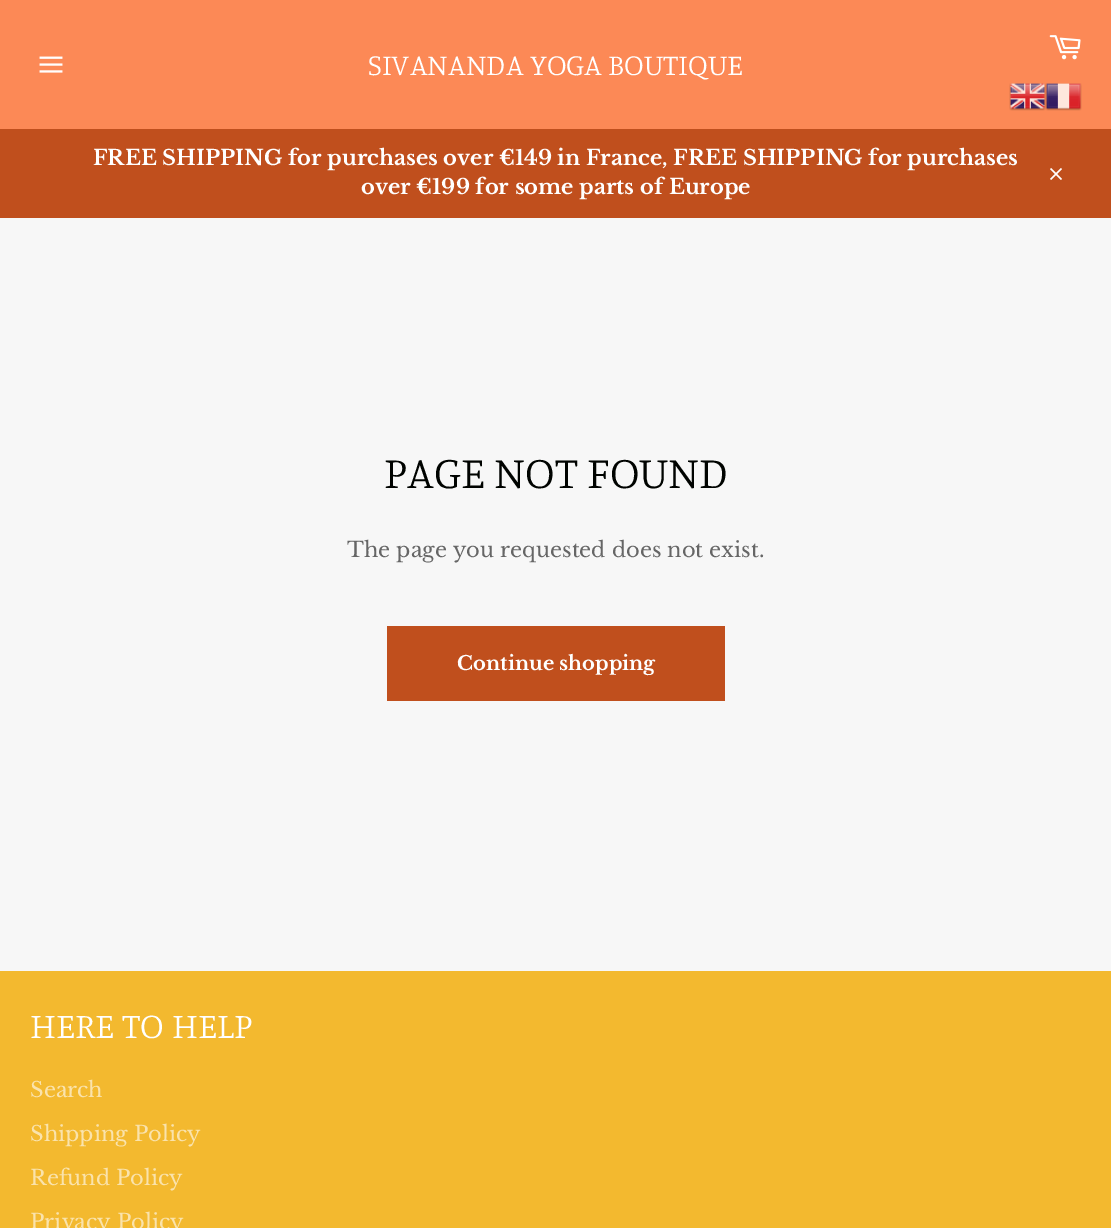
%!PS
<< /PageSize [1111 1228] >> setpagedevice
/C { dup -16 bitshift 255 div exch dup -8 bitshift 255 and 255 div exch 255 and 255 div setrgbcolor } def
/F { [ exch dup neg 0 0 3 -1 roll 0 0 ] selectfont } def
/T { moveto show } def
/R { rectfill } def
/I { 5 dict begin { /h /w /y /x /name } { exch def } forall
  gsave x y translate w h scale
  w h 8 [w 0 0 h 0 0] name (r) file false 3 colorimage grestore end } def
0 1228 translate 1 -1 scale
4 setmiterlimit
16#F7F7F7 C
0 0 1111 1228 R
16#FC8956 C
0 0 1111 129 R
(1.rgb) 39 56 24 17 I
/Manuale-Light 30 F
16#FFFFFF C
(SIVANANDA YOGA BOUTIQUE) 368 75 T
(2.rgb) 1049 35 32 25 I
(3.rgb) 1009 83 37 28 I
(4.rgb) 1045 83 37 28 I
16#C04F1D C
0 129 1111 89 R
/LibreBaskerville-Bold 21 F
16#FFFFFF C
(FREE SHIPPING for purchases over €149 in France, FREE SHIPPING for purchases) 93 165 T
(over €199 for some parts of Europe) 361 194 T
(5.rgb) 1050 168 12 12 I
/Manuale-Light 45 F
16#000300 C
(PAGE NOT FOUND) 384 488 T
/LibreBaskerville-Regular 21 F
16#666666 C
(The page you requested does not exist.) 347 557 T
16#C04F1D C
387 626 338 75 R
/LibreBaskerville-Bold 19.5 F
16#FFFFFF C
(Continue shopping) 457 670 T
16#F3B92F C
0 971 1111 257 R
/Manuale-Light 36 F
16#FFFFFF C
(HERE TO HELP) 30 1038 T
/LibreBaskerville-Regular 21 F
16#FAE3AC C
(Search) 30 1097 T
(Shipping Policy) 30 1141 T
(Refund Policy) 30 1185 T
(Privacy Policy) 30 1229 T
showpage
